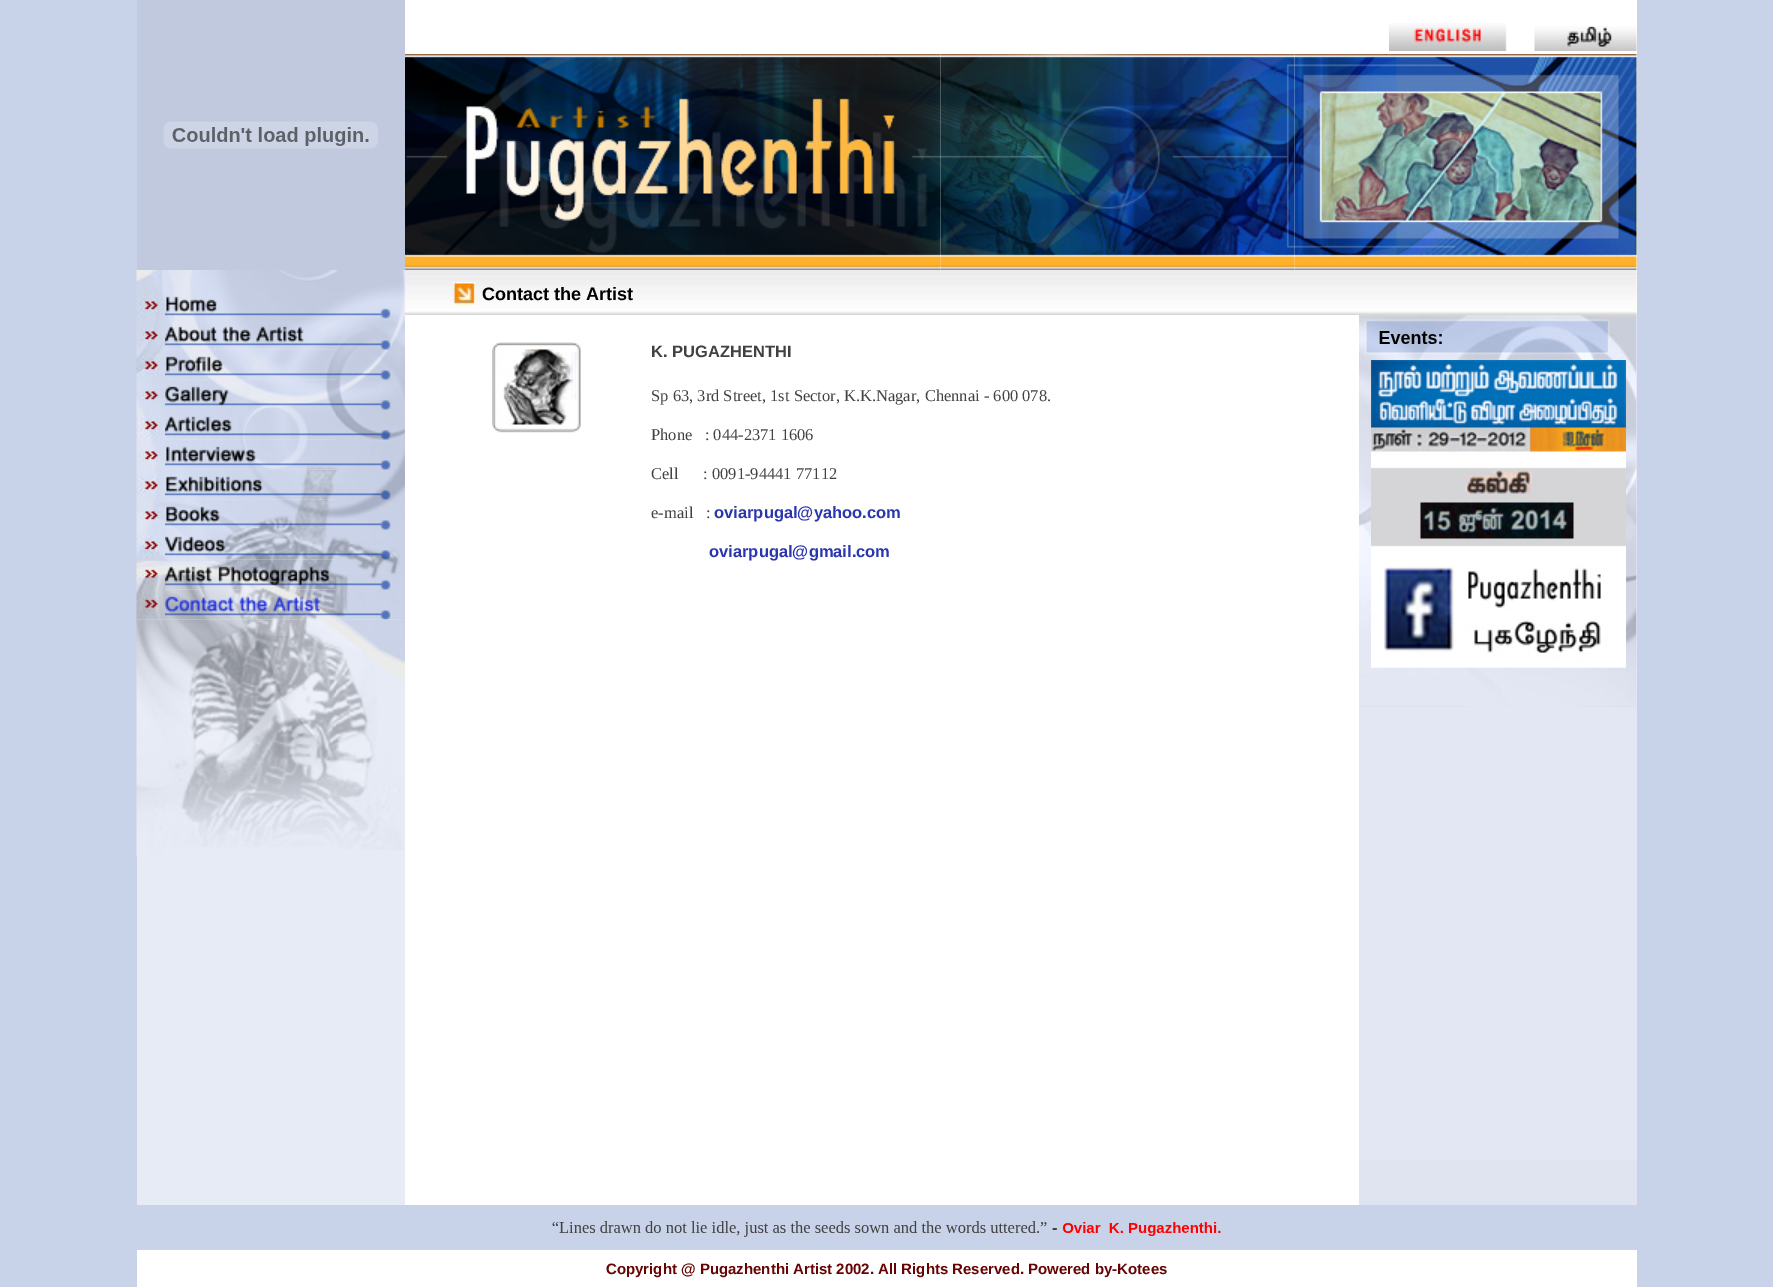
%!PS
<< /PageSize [1773 1287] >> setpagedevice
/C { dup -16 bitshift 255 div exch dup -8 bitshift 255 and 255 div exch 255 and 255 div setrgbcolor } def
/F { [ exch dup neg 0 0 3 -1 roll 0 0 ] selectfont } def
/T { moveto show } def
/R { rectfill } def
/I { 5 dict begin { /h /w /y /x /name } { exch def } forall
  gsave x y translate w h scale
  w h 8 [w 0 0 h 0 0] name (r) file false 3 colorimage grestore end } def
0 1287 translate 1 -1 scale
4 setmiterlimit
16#C8D2E9 C
0 0 1773 1287 R
16#C1C9DE C
137 0 268 270 R
(1.rgb) 163 121 215 28 I
16#FFFFFF C
405 0 1232 1205 R
(2.rgb) 1389 23 118 28 I
(3.rgb) 1534 26 103 25 I
(4.rgb) 405 54 536 216 I
(5.rgb) 940 54 355 216 I
(6.rgb) 1294 54 343 216 I
16#E6EBF6 C
137 349 268 856 R
(7.rgb) 136 270 29 350 I
(8.rgb) 165 270 171 24 I
(9.rgb) 336 270 69 350 I
(10.rgb) 165 294 171 24 I
(11.rgb) 165 318 171 32 I
(12.rgb) 165 349 171 31 I
(13.rgb) 165 379 171 29 I
(14.rgb) 165 408 171 32 I
(15.rgb) 165 439 171 31 I
(16.rgb) 165 469 171 31 I
(17.rgb) 165 499 171 29 I
(18.rgb) 165 528 171 32 I
(19.rgb) 165 559 171 31 I
(20.rgb) 165 589 171 31 I
(21.rgb) 136 619 29 238 I
(22.rgb) 165 619 171 228 I
(23.rgb) 336 619 69 231 I
(24.rgb) 405 270 954 45 I
(25.rgb) 453 282 23 23 I
/LiberationSans-Bold 18 F
16#000000 C
(Contact the Artist) 482 300 T
(26.rgb) 1359 270 278 45 I
(27.rgb) 492 342 89 91 I
/LiberationSans-Bold 16.5 F
16#414141 C
(K. PUGAZHENTHI) 651 357 T
/LiberationSerif-Regular 16.5 F
(Sp 63, 3rd Street, 1st Sector, K.K.Nagar, Chennai - 600 078.) 651 401 T
(Phone   : 044-2371 1606) 651 440 T
(Cell      : 0091-94441 77112) 651 479 T
(e-mail   :) 651 518 T
/LiberationSans-Bold 16.5 F
16#2A36AD C
(oviarpugal@yahoo.com) 714 518 T
(oviarpugal@gmail.com) 709 557 T
16#E2E7F3 C
1359 315 278 845 R
(28.rgb) 1359 315 278 392 I
16#E0E4F0 C
1359 1160 278 45 R
(29.rgb) 552 1221 669 16 I
16#FFFFFF C
137 1250 1500 37 R
/LiberationSans-Bold 15 F
16#670303 C
(Copyright @ Pugazhenthi Artist 2002. All Rights Reserved. Powered by-Kotees) 606 1274 T
showpage
